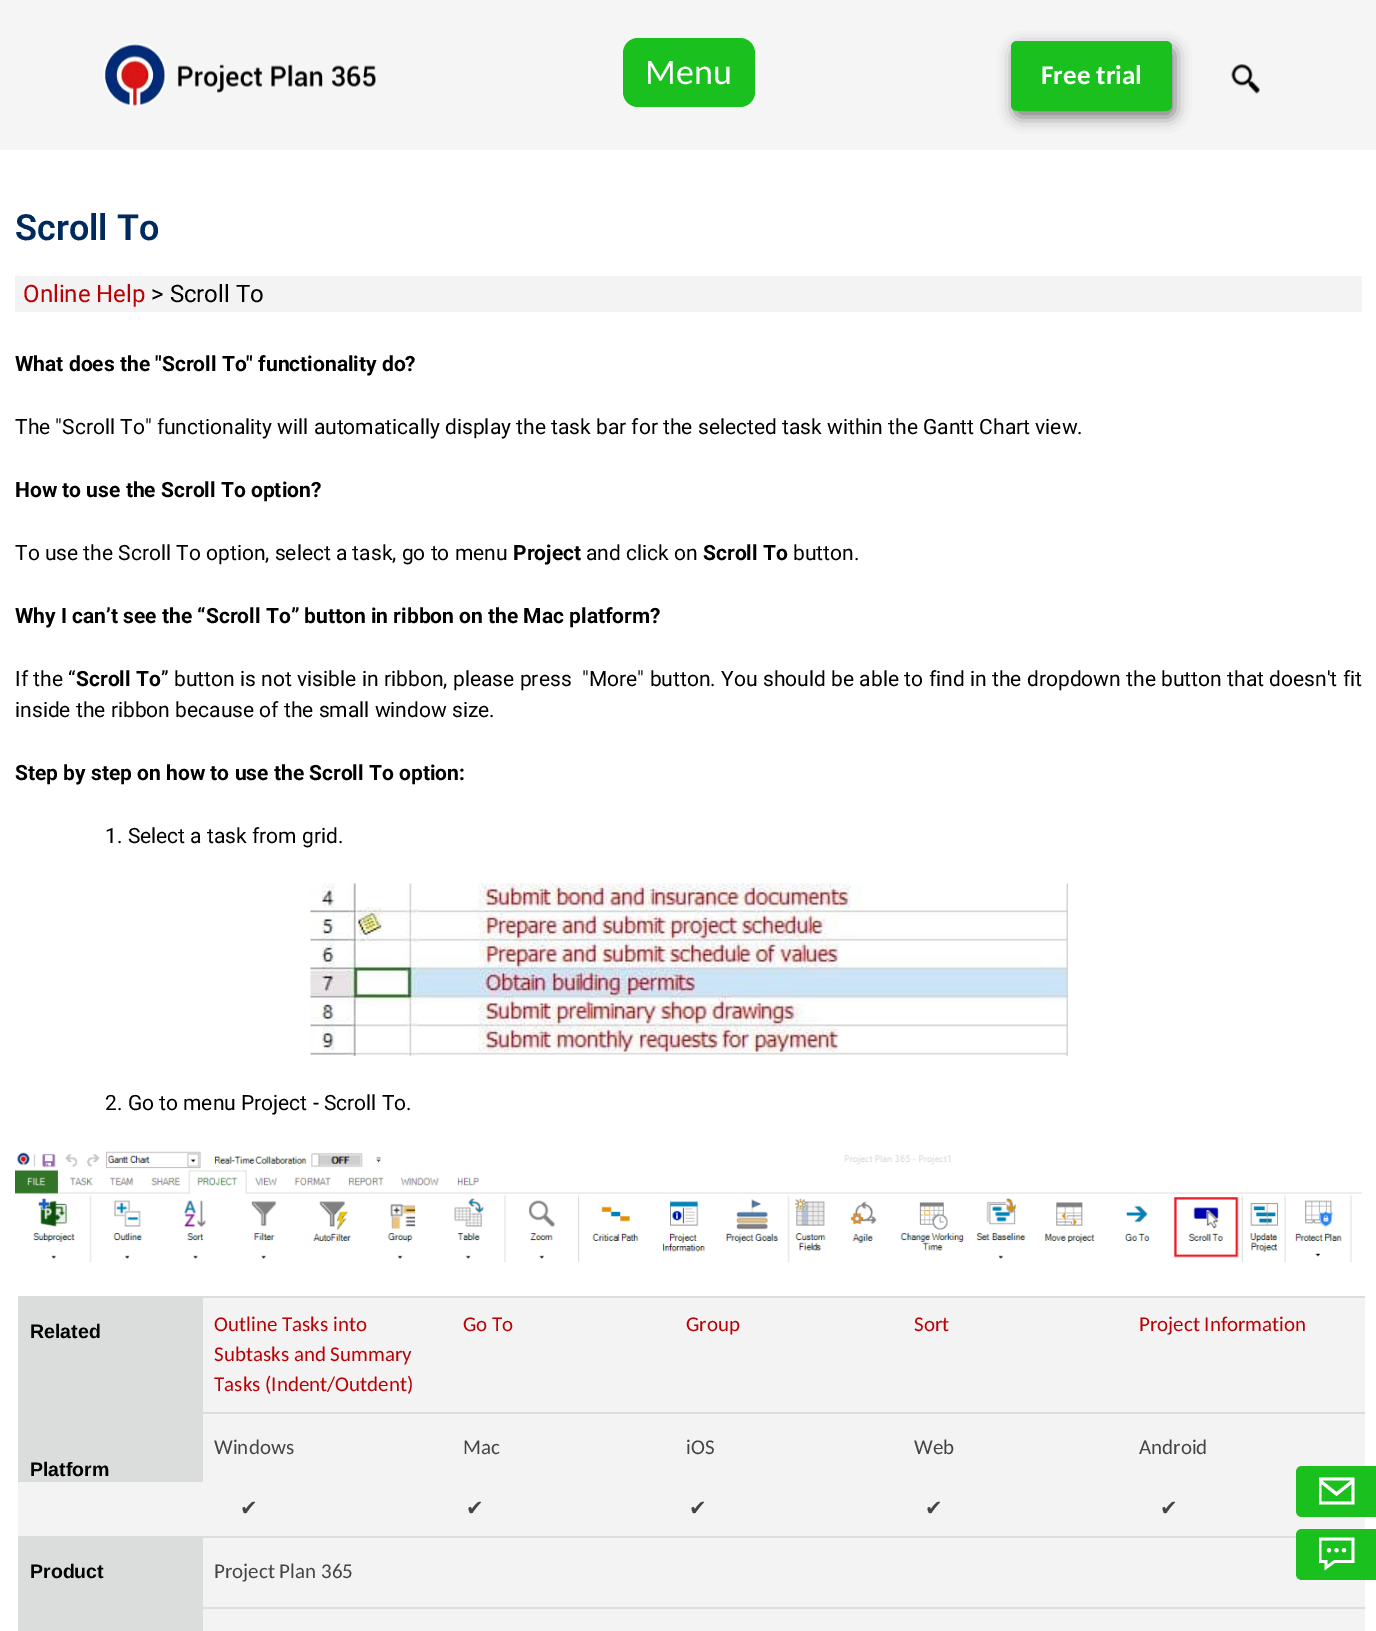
%!PS
<< /PageSize [1376 1631] /PageUsesTransparency true >> setpagedevice
/m/moveto load def
/l/rlineto load def
/c/rcurveto load def
/z/closepath load def
/f/fill load def
/q/gsave load def
/Q_/grestore load def
/C { dup -16 bitshift 255 div exch dup -8 bitshift 255 and 255 div exch 255 and 255 div setrgbcolor } def
/F { [ exch dup neg 0 0 3 -1 roll 0 0 ] selectfont } def
/T { moveto show } def
/R { rectfill } def
/A { dup .setfillconstantalpha .setstrokeconstantalpha } def
/Q { 5 dict begin { /r /h /w /y /x } { exch def } forall
  x r add y moveto x w add y 2 copy h add r arct x w add y h add x 1 index r arct
  x y h add x y r arct x y 2 copy exch w add exch r arct closepath end } def
/S { 12 dict begin { /a /b /q /h /w /y /x } { exch def } forall gsave /was 0 def
  9 -2 -9 { dup b mul 4 div /e exch def 1 sub .425 mul 2.718 exch exp 1 add a .99 .min exch div /now exch def
    1 1 now sub 1 was sub div sub A /was now def
    w h .min e 2 mul add 0 gt { x e sub y e sub w e 2 mul add h e 2 mul add
      q e add b .6 mul add w h .min 2 div e add .min 0 .max Q fill } if } for grestore end } def
/I { 5 dict begin { /h /w /y /x /name } { exch def } forall
  gsave x y translate w h scale
  w h 8 [w 0 0 h 0 0] name (r) file false 3 colorimage grestore end } def
0 .pushpdf14devicefilter
0 1631 translate 1 -1 scale
4 setmiterlimit
16#FFFFFF C
0 0 1376 1631 R
16#F5F5F5 C
0 0 1376 150 R
(1.rgb) 103 43 273 64 I
16#1AC01E C
623 38 132 69 15 Q f
/Carlito-Regular 36 F
16#FFFFFF C
(Menu) 645 84 T
16#000000 C
1014 47 161 70 6 7.5 .5 S
16#1AC01E C
1011 41 161 70 6 Q f
/Carlito-Bold 27 F
16#FFFFFF C
(Free trial) 1041 84 T
(2.rgb) 1231 64 29 30 I
/Roboto-SemiBold 36 F
16#00295D C
(Scroll To) 15 240 T
16#F3F3F3 C
15 276 1347 36 R
/Roboto-Regular 24 F
16#BB0003 C
(Online Help) 23 302 T
16#000000 C
(> Scroll To) 151 302 T
/Roboto-Bold 21 F
(What does the "Scroll To" functionality do?) 15 371 T
/Roboto-Regular 21 F
(The "Scroll To" functionality will automatically display the task bar for the selected task within the Gantt Chart view.) 15 434 T
/Roboto-Bold 21 F
(How to use the Scroll To option?) 15 497 T
/Roboto-Regular 21 F
(To use the Scroll To option, select a task, go to menu) 15 560 T
/Roboto-Bold 21 F
(Project) 513 560 T
/Roboto-Regular 21 F
(and click on) 586 560 T
/Roboto-Bold 21 F
(Scroll To) 703 560 T
/Roboto-Regular 21 F
(button.) 793 560 T
/Roboto-Bold 21 F
(Why I can’t see the “Scroll To” button in ribbon on the Mac platform?) 15 623 T
/Roboto-Regular 21 F
(If the “) 15 686 T
/Roboto-Bold 21 F
(Scroll To) 76 686 T
/Roboto-Regular 21 F
161 686 m .2 0 32 (” button is not visible in ribbon, please press  "More" button. You should be able to find in the dropdown the button that doesn't fit) widthshow
(inside the ribbon because of the small window size.) 15 717 T
/Roboto-Bold 21 F
(Step by step on how to use the Scroll To option:) 15 780 T
/Roboto-Regular 21 F
(1. Select a task from grid.) 105 843 T
(3.rgb) 310 883 758 173 I
(2. Go to menu Project - Scroll To.) 105 1110 T
(4.rgb) 15 1151 1347 112 I
16#F3F3F3 C
203 1298 1162 114 R
16#DBDCDC C
18 1298 185 114 R
/LiberationSans-Bold 19.5 F
16#000000 C
(Related) 30 1338 T
/Carlito-Regular 21 F
16#BB0003 C
(Outline Tasks into) 214 1331 T
(Subtasks and Summary) 214 1361 T
(Tasks \(Indent/Outdent\)) 214 1391 T
(Go To) 463 1331 T
(Group) 686 1331 T
(Sort) 914 1331 T
16#DDDDDD C
18 1296 1347 2 R
16#BB0003 C
(Project Information) 1139 1331 T
16#F3F3F3 C
203 1414 1162 68 R
16#444444 C
(Windows) 214 1454 T
(Mac) 463 1454 T
(iOS) 686 1454 T
(Web) 914 1454 T
16#DDDDDD C
18 1412 1347 2 R
16#444444 C
(Android) 1139 1454 T
16#DBDCDC C
18 1414 185 68 R
/LiberationSans-Bold 19.5 F
16#000000 C
(Platform) 30 1476 T
16#F3F3F3 C
18 1482 1347 54 R
/DejaVuSans-Regular 21 F
16#444444 C
(✔) 240 1515 T
(✔) 466 1515 T
(✔) 689 1515 T
(✔) 925 1515 T
(✔) 1160 1515 T
16#F3F3F3 C
203 1538 1162 69 R
16#DDDDDD C
18 1536 1278 2 R
16#DBDCDC C
18 1538 185 69 R
/LiberationSans-Bold 19.5 F
16#000000 C
(Product) 30 1578 T
/Carlito-Regular 21 F
16#444444 C
(Project Plan 365) 214 1578 T
16#F3F3F3 C
203 1609 1162 22 R
16#DDDDDD C
18 1607 1347 2 R
16#DBDCDC C
18 1609 185 22 R
16#1AC01E C
1302 1466 m 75 0 l 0 51 l -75 0 l -3.5 0 -6 -2.5 -6 -6 c 0 -39 l 0 -3.5 2.5 -6 6 -6 c z f
q
1319 1473 36 36 rectclip
16#FFFFFF C
1318.5 1477.5 m 0 27 l 36 0 l 0 -27 l z 1351 1480.5 m -14.5 11.5 l -14.5 -11.5 l z 1321.5 1501.5 m 0 -17.5 l 15 12 l 15 -12 l 0 17.5 l z f
Q_
1302 1529 m 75 0 l 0 51 l -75 0 l -3.5 0 -6 -2.5 -6 -6 c 0 -39 l 0 -3.5 2.5 -6 6 -6 c z f
(5.rgb) 1319 1537 36 34 I
.poppdf14devicefilter showpage
